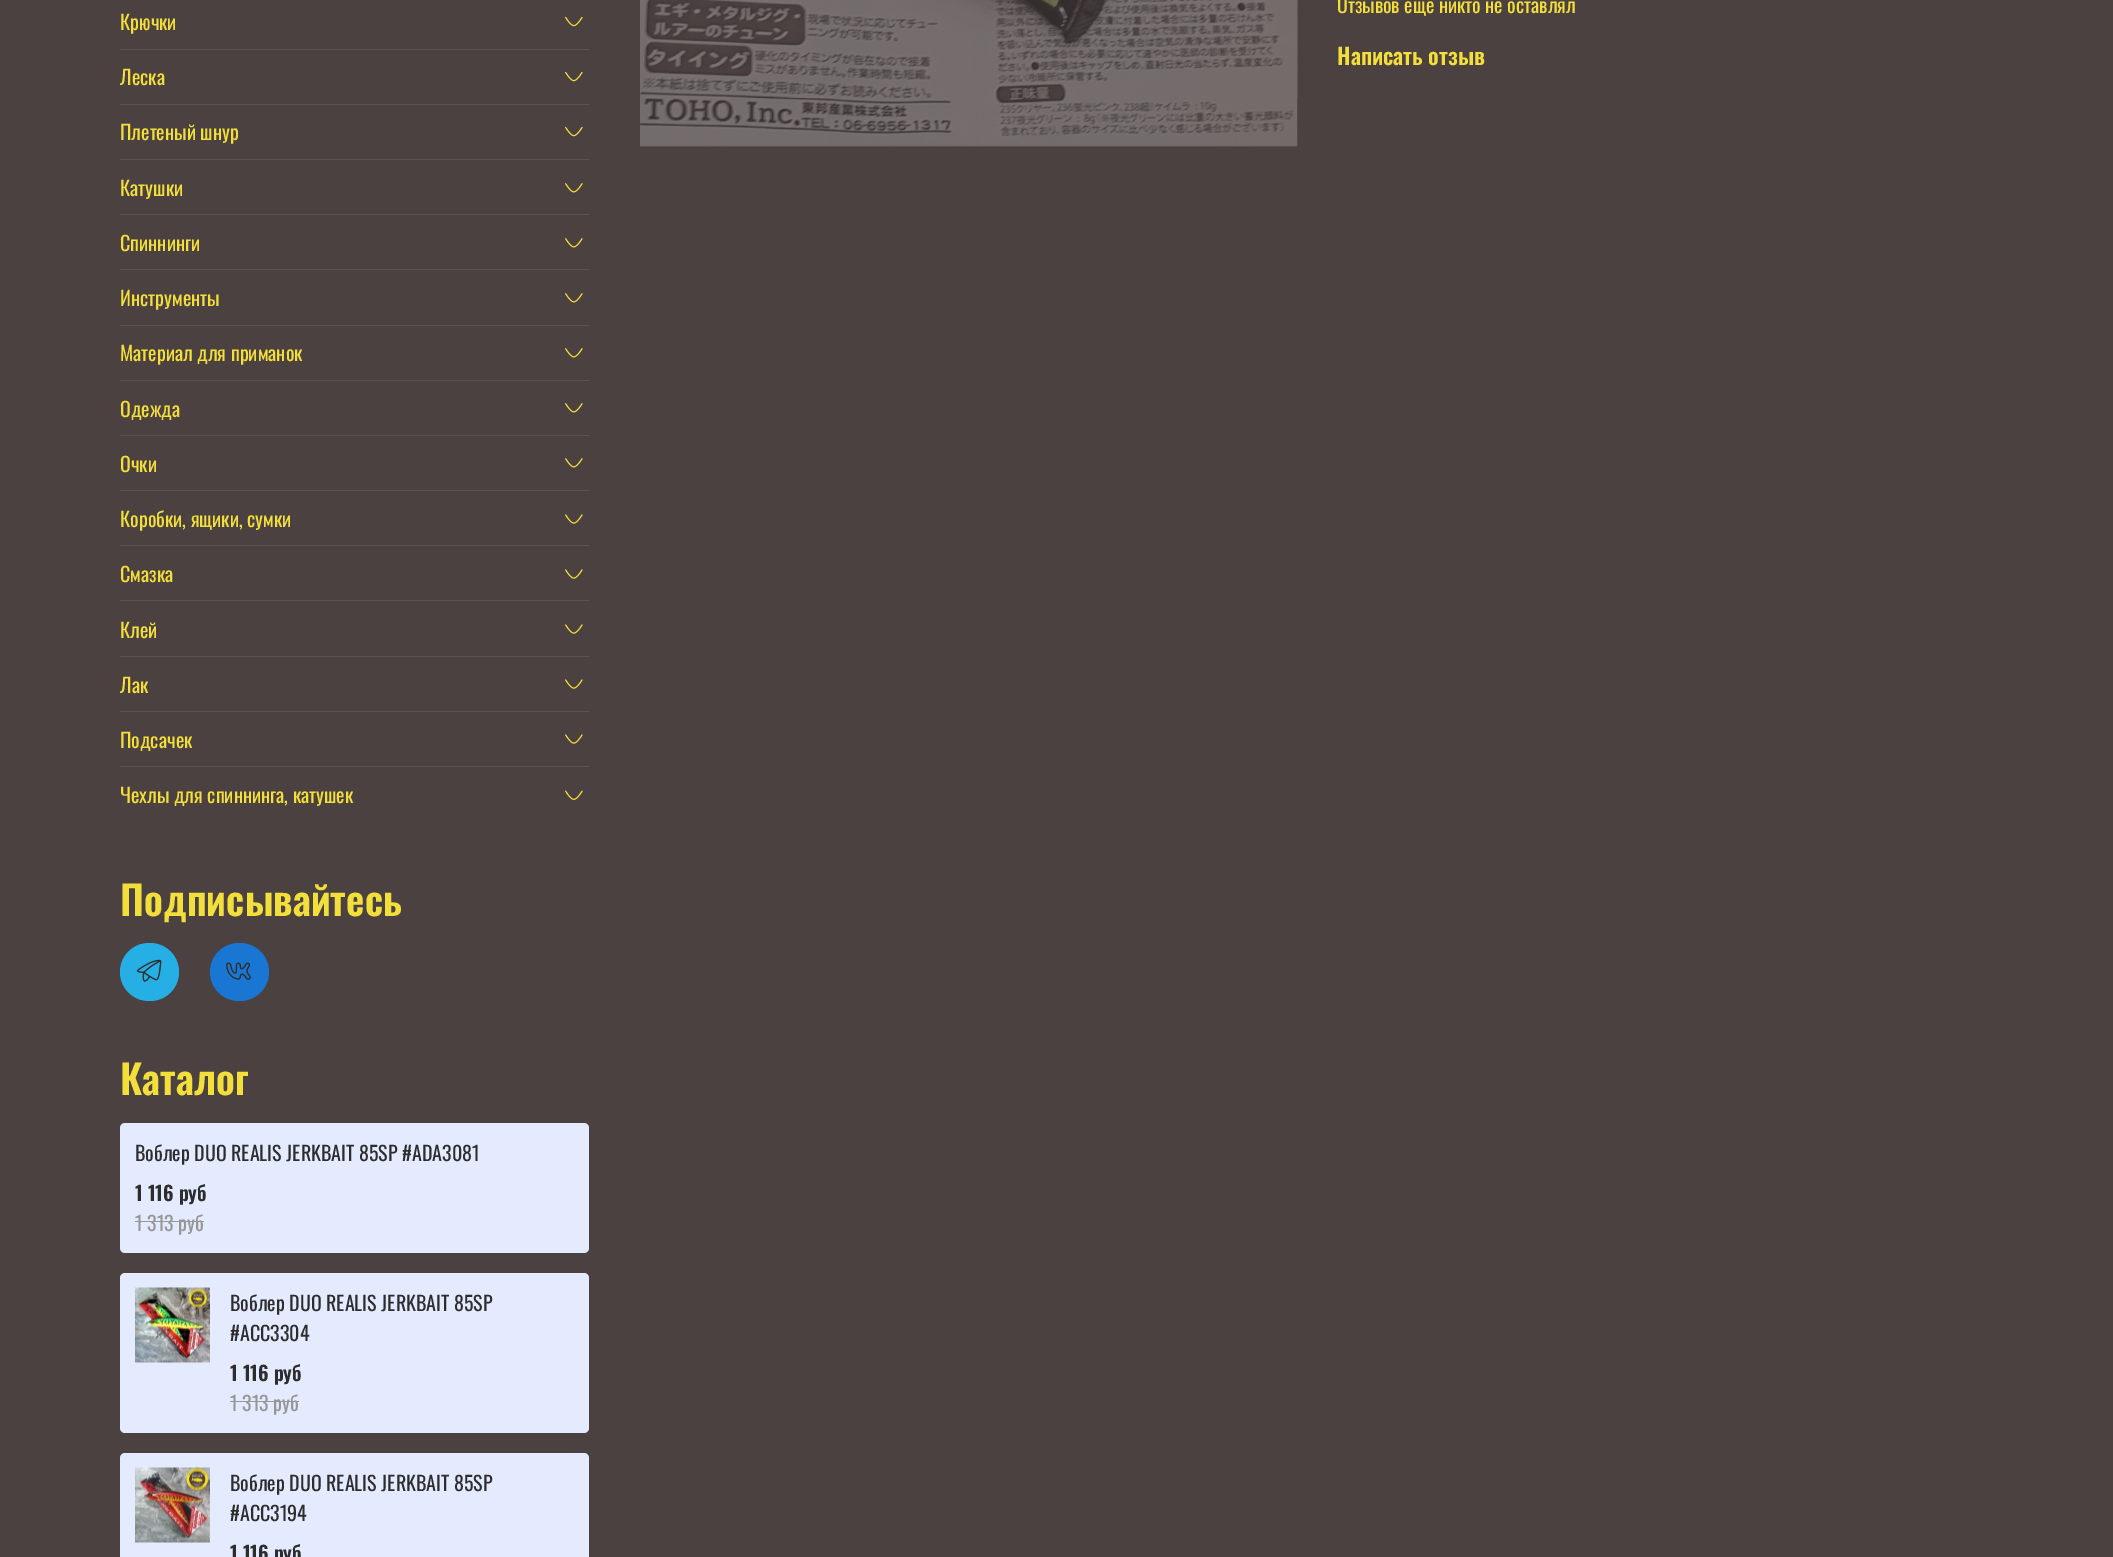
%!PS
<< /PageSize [2113 1557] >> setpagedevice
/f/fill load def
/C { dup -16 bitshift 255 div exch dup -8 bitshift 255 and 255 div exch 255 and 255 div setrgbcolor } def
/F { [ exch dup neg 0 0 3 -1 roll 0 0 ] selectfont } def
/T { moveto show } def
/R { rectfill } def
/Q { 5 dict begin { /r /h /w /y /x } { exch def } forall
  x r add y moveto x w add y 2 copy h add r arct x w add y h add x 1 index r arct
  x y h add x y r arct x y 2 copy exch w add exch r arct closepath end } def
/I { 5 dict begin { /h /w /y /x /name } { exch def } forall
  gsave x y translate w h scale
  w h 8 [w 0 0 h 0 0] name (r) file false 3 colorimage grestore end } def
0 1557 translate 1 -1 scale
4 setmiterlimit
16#4B4140 C
0 0 2113 1557 R
16#5E5250 C
120 49 469 1 R
/Oswald-Regular 20 F
16#F3DF3B C
(Крючки) 120 30 T
(1.rgb) 565 16 18 11 I
16#5E5250 C
120 104 469 1 R
16#F3DF3B C
(Леска) 120 85 T
(1.rgb) 565 71 18 11 I
16#5E5250 C
120 159 469 1 R
16#F3DF3B C
(Плетеный шнур) 120 140 T
(1.rgb) 565 126 18 11 I
16#5E5250 C
120 214 469 1 R
16#F3DF3B C
(Катушки) 120 196 T
(2.rgb) 565 183 18 10 I
16#5E5250 C
120 269 469 1 R
16#F3DF3B C
(Спиннинги) 120 251 T
(2.rgb) 565 238 18 10 I
16#5E5250 C
120 325 469 1 R
16#F3DF3B C
(Инструменты) 120 306 T
(2.rgb) 565 293 18 10 I
16#5E5250 C
120 380 469 1 R
16#F3DF3B C
(Материал для приманок) 120 361 T
(2.rgb) 565 348 18 10 I
16#5E5250 C
120 435 469 1 R
16#F3DF3B C
(Одежда) 120 417 T
(2.rgb) 565 403 18 10 I
16#5E5250 C
120 490 469 1 R
16#F3DF3B C
(Очки) 120 472 T
(2.rgb) 565 458 18 10 I
16#5E5250 C
120 545 469 1 R
16#F3DF3B C
(Коробки, ящики, сумки) 120 527 T
(3.rgb) 565 514 18 10 I
16#5E5250 C
120 600 469 1 R
16#F3DF3B C
(Смазка) 120 582 T
(3.rgb) 565 569 18 10 I
16#5E5250 C
120 656 469 1 R
16#F3DF3B C
(Клей) 120 638 T
(3.rgb) 565 624 18 10 I
16#5E5250 C
120 711 469 1 R
16#F3DF3B C
(Лак) 120 693 T
(3.rgb) 565 679 18 10 I
16#5E5250 C
120 766 469 1 R
16#F3DF3B C
(Подсачек) 120 748 T
(3.rgb) 565 734 18 10 I
(Чехлы для спиннинга, катушек) 120 803 T
(4.rgb) 565 790 18 10 I
/Oswald-SemiBold 40 F
(Подписывайтесь) 120 916 T
16#26AFE5 C
120 943 59 58 29 Q f
(5.rgb) 136 959 26 23 I
16#1976D2 C
210 943 59 58 29 Q f
(6.rgb) 226 962 25 18 I
16#F3DF3B C
(Каталог) 120 1095 T
16#E5EBFF C
120 1123 469 130 5 Q f
/Oswald-Regular 20 F
16#2D2D2D C
(Воблер DUO REALIS JERKBAIT 85SP #ADA3081) 135 1161 T
/Oswald-SemiBold 20 F
(1 116 руб) 135 1201 T
/Oswald-Regular 20 F
16#969696 C
(1 313 руб) 135 1231 T
135 1221 69 1 R
16#E5EBFF C
120 1273 469 160 5 Q f
(7.rgb) 135 1287 75 76 I
16#2D2D2D C
(Воблер DUO REALIS JERKBAIT 85SP) 230 1311 T
(#ACC3304) 230 1341 T
/Oswald-SemiBold 20 F
(1 116 руб) 230 1381 T
/Oswald-Regular 20 F
16#969696 C
(1 313 руб) 230 1411 T
230 1401 69 1 R
16#E5EBFF C
120 1453 469 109 5 Q f
(8.rgb) 135 1467 75 76 I
16#2D2D2D C
(Воблер DUO REALIS JERKBAIT 85SP) 230 1491 T
(#ACC3194) 230 1521 T
/Oswald-SemiBold 20 F
(1 116 руб) 230 1561 T
(9.rgb) 640 0 658 147 I
/Oswald-Regular 20 F
16#F3DF3B C
(Отзывов еще никто не оставлял) 1337 13 T
/Oswald-SemiBold 22.5 F
(Написать отзыв) 1337 65 T
showpage
